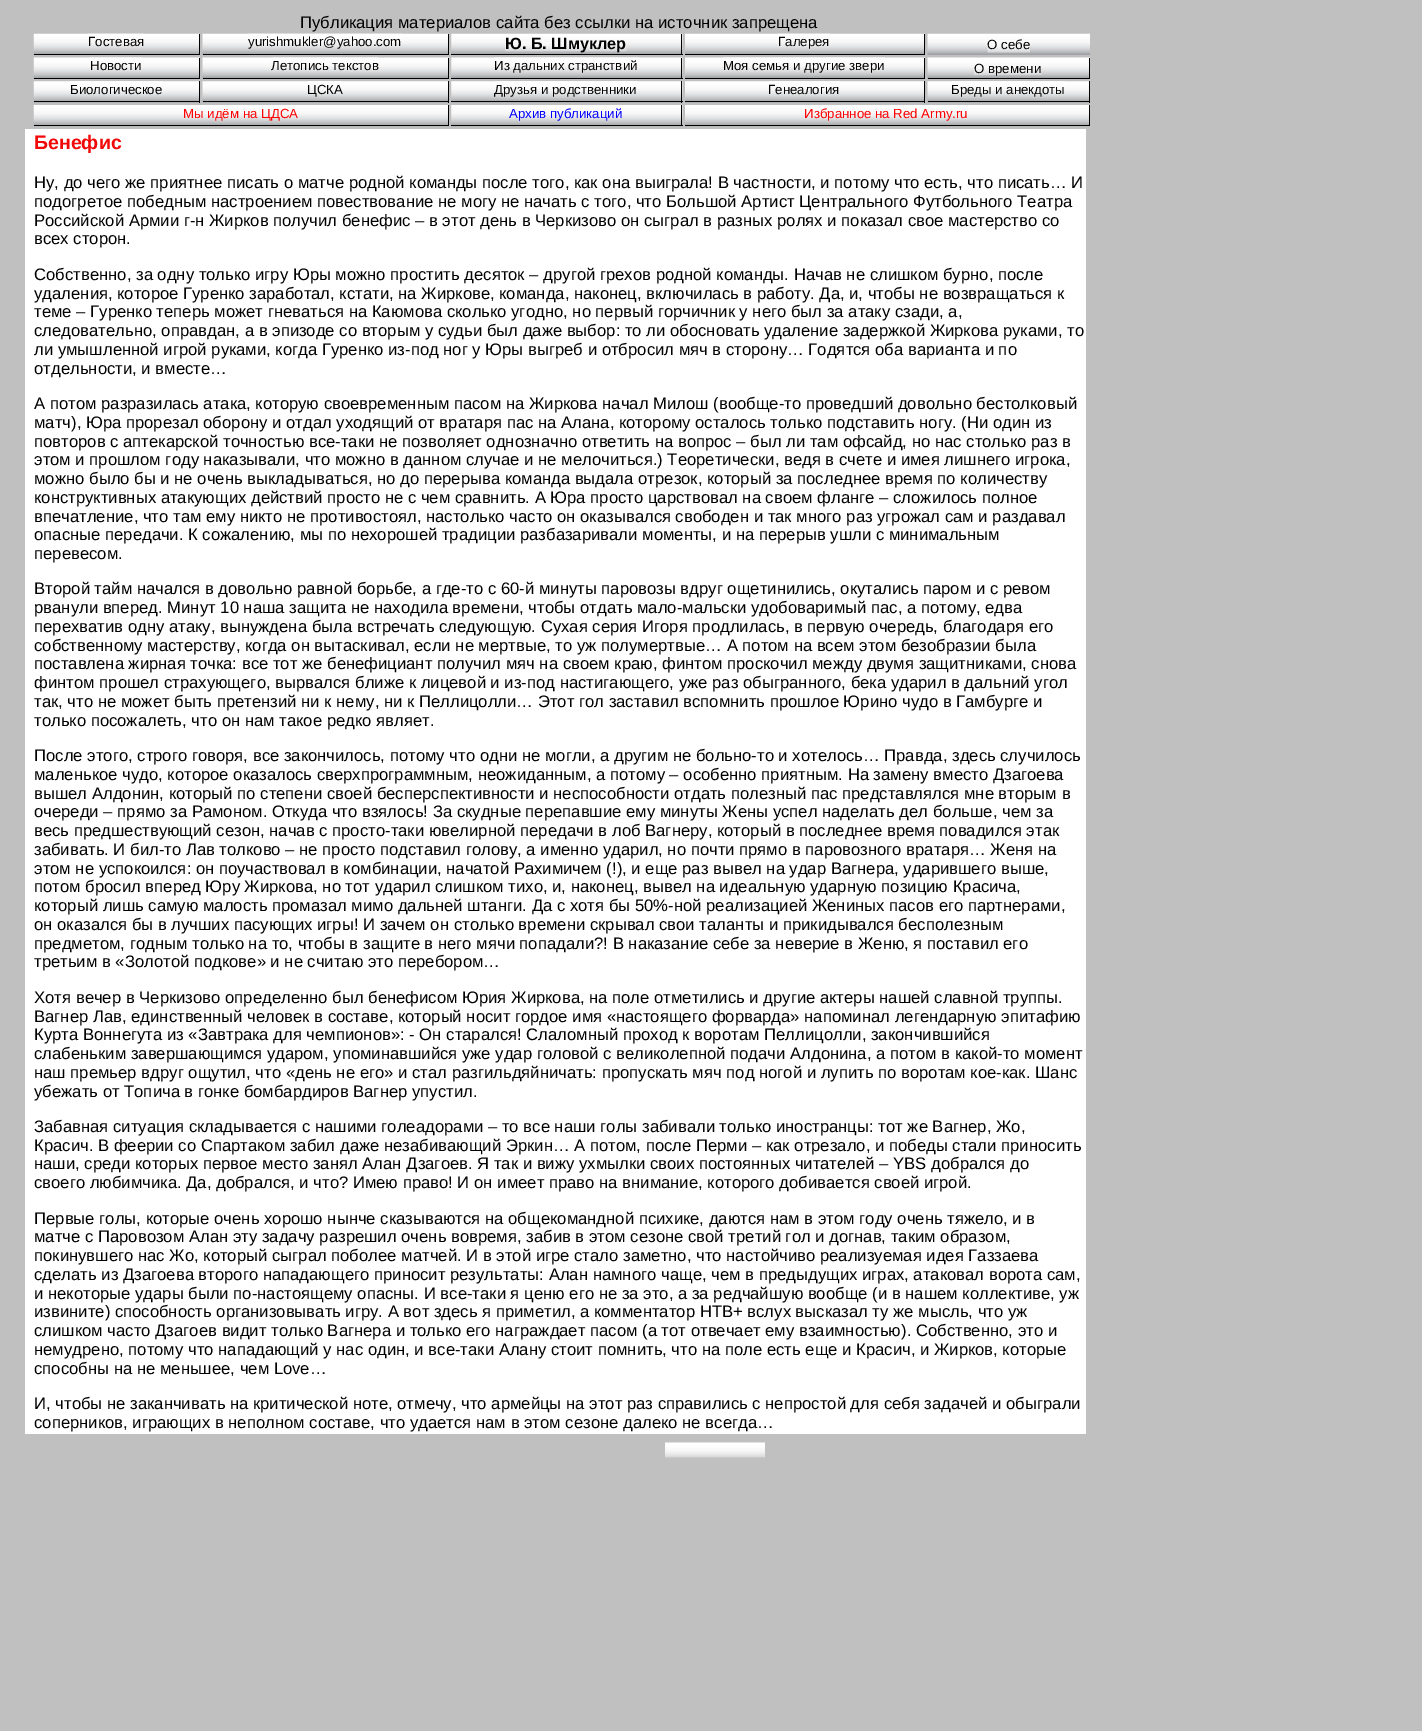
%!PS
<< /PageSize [1422 1731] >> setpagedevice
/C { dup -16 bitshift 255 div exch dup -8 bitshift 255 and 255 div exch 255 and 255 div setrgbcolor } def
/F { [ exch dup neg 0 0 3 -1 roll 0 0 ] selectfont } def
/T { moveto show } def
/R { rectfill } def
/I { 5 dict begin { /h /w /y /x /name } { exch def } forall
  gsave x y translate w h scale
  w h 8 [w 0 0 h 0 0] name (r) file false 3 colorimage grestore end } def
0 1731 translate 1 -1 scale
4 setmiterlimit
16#C0C0C0 C
0 0 1422 1731 R
/LiberationSans-Regular 16.67 F
16#000000 C
(Публикация материалов сайта без ссылки на источник запрещена) 300 28 T
(1.rgb) 33 33 167 22 I
199 34 1 21 R
34 54 166 1 R
(2.rgb) 87 33 57 1 I
/LiberationSans-Regular 13.25 F
(Гостевая) 88 46 T
(3.rgb) 202 33 247 22 I
448 34 1 21 R
203 54 246 1 R
(4.rgb) 247 33 156 1 I
(yurishmukler@yahoo.com) 248 46 T
(5.rgb) 451 33 232 21 I
681 34 1 21 R
451 54 232 1 R
(6.rgb) 505 42 122 10 I
/LiberationSans-Bold 16.25 F
(Ю. Б. Шмуклер) 505 49 T
(7.rgb) 685 33 240 21 I
924 34 1 21 R
685 54 240 1 R
(8.rgb) 777 33 53 1 I
/LiberationSans-Regular 13.25 F
(Галерея) 778 46 T
(9.rgb) 927 33 163 22 I
(10.rgb) 987 40 43 13 I
(О себе) 987 49 T
(11.rgb) 33 57 167 22 I
199 58 1 21 R
34 78 166 1 R
(12.rgb) 90 57 53 1 I
(Новости) 90 70 T
(13.rgb) 202 57 247 22 I
448 58 1 21 R
203 78 246 1 R
(14.rgb) 271 57 108 1 I
(Летопись текстов) 271 70 T
(15.rgb) 451 57 232 21 I
681 58 1 21 R
451 78 232 1 R
(16.rgb) 494 57 145 1 I
(Из дальних странствий) 494 70 T
(17.rgb) 685 57 240 21 I
924 58 1 21 R
685 78 240 1 R
(18.rgb) 722 57 163 1 I
(Моя семья и другие звери) 723 70 T
(19.rgb) 927 57 163 22 I
1089 58 1 21 R
928 78 162 1 R
(20.rgb) 973 66 69 9 I
(О времени) 974 73 T
(21.rgb) 33 81 166 22 I
199 81 1 22 R
34 101 166 1 R
(22.rgb) 70 81 93 1 I
(Биологическое) 70 94 T
(23.rgb) 202 81 246 22 I
448 81 1 22 R
203 101 246 1 R
(24.rgb) 307 81 36 1 I
(ЦСКА) 307 94 T
(25.rgb) 451 81 232 22 I
681 81 1 22 R
451 101 232 1 R
(26.rgb) 495 81 143 1 I
(Друзья и родственники) 494 94 T
(27.rgb) 685 81 239 22 I
924 81 1 22 R
685 101 240 1 R
(Генеалогия) 768 94 T
16#FBFBFB C
769 81 71 1 R
(28.rgb) 927 81 162 22 I
16#000000 C
1089 81 1 22 R
928 101 162 1 R
(29.rgb) 951 81 114 1 I
(Бреды и анекдоты) 951 94 T
(30.rgb) 33 105 416 22 I
448 105 1 21 R
34 125 415 1 R
16#FF0000 C
(Мы идём на ЦДСА) 183 118 T
(31.rgb) 451 105 232 22 I
16#000000 C
681 105 1 21 R
451 125 232 1 R
16#0000FF C
(Архив публикаций) 509 118 T
(32.rgb) 685 105 405 22 I
16#000000 C
1089 105 1 21 R
685 125 405 1 R
16#FF0000 C
(Избранное на Red Army.ru) 804 118 T
16#FFFFFF C
25 129 1061 1305 R
/LiberationSans-Bold 19.5 F
16#F30808 C
(Бенефис) 34 149 T
/LiberationSans-Regular 16.67 F
16#000000 C
(Ну, до чего же приятнее писать о матче родной команды после того, как она выиграла! В частности, и потому что есть, что писать… И) 34 188 T
(подогретое победным настроением повествование не могу не начать с того, что Большой Артист Центрального Футбольного Театра) 34 207 T
(Российской Армии г-н Жирков получил бенефис – в этот день в Черкизово он сыграл в разных ролях и показал свое мастерство со) 34 226 T
(всех сторон.) 34 244 T
(Собственно, за одну только игру Юры можно простить десяток – другой грехов родной команды. Начав не слишком бурно, после) 34 280 T
(удаления, которое Гуренко заработал, кстати, на Жиркове, команда, наконец, включилась в работу. Да, и, чтобы не возвращаться к) 34 299 T
(теме – Гуренко теперь может гневаться на Каюмова сколько угодно, но первый горчичник у него был за атаку сзади, а,) 34 317 T
(следовательно, оправдан, а в эпизоде со вторым у судьи был даже выбор: то ли обосновать удаление задержкой Жиркова руками, то) 34 336 T
(ли умышленной игрой руками, когда Гуренко из-под ног у Юры выгреб и отбросил мяч в сторону… Годятся оба варианта и по) 34 355 T
(отдельности, и вместе…) 34 374 T
(А потом разразилась атака, которую своевременным пасом на Жиркова начал Милош \(вообще-то проведший довольно бестолковый) 34 409 T
(матч\), Юра прорезал оборону и отдал уходящий от вратаря пас на Алана, которому осталось только подставить ногу. \(Ни один из) 34 428 T
(повторов с аптекарской точностью все-таки не позволяет однозначно ответить на вопрос – был ли там офсайд, но нас столько раз в) 34 447 T
(этом и прошлом году наказывали, что можно в данном случае и не мелочиться.\) Теоретически, ведя в счете и имея лишнего игрока,) 34 465 T
(можно было бы и не очень выкладываться, но до перерыва команда выдала отрезок, который за последнее время по количеству) 34 484 T
(конструктивных атакующих действий просто не с чем сравнить. А Юра просто царствовал на своем фланге – сложилось полное) 34 503 T
(впечатление, что там ему никто не противостоял, настолько часто он оказывался свободен и так много раз угрожал сам и раздавал) 34 522 T
(опасные передачи. К сожалению, мы по нехорошей традиции разбазаривали моменты, и на перерыв ушли с минимальным) 34 540 T
(перевесом.) 34 559 T
(Второй тайм начался в довольно равной борьбе, а где-то с 60-й минуты паровозы вдруг ощетинились, окутались паром и с ревом) 34 594 T
(рванули вперед. Минут 10 наша защита не находила времени, чтобы отдать мало-мальски удобоваримый пас, а потому, едва) 34 613 T
(перехватив одну атаку, вынуждена была встречать следующую. Сухая серия Игоря продлилась, в первую очередь, благодаря его) 34 632 T
(собственному мастерству, когда он вытаскивал, если не мертвые, то уж полумертвые… А потом на всем этом безобразии была) 34 651 T
(поставлена жирная точка: все тот же бенефициант получил мяч на своем краю, финтом проскочил между двумя защитниками, снова) 34 669 T
(финтом прошел страхующего, вырвался ближе к лицевой и из-под настигающего, уже раз обыгранного, бека ударил в дальний угол) 34 688 T
(так, что не может быть претензий ни к нему, ни к Пеллицолли… Этот гол заставил вспомнить прошлое Юрино чудо в Гамбурге и) 34 707 T
(только посожалеть, что он нам такое редко являет.) 34 726 T
(После этого, строго говоря, все закончилось, потому что одни не могли, а другим не больно-то и хотелось… Правда, здесь случилось) 34 761 T
(маленькое чудо, которое оказалось сверхпрограммным, неожиданным, а потому – особенно приятным. На замену вместо Дзагоева) 34 780 T
(вышел Алдонин, который по степени своей бесперспективности и неспособности отдать полезный пас представлялся мне вторым в) 34 799 T
(очереди – прямо за Рамоном. Откуда что взялось! За скудные перепавшие ему минуты Жены успел наделать дел больше, чем за) 34 817 T
(весь предшествующий сезон, начав с просто-таки ювелирной передачи в лоб Вагнеру, который в последнее время повадился этак) 34 836 T
(забивать. И бил-то Лав толково – не просто подставил голову, а именно ударил, но почти прямо в паровозного вратаря… Женя на) 34 855 T
(этом не успокоился: он поучаствовал в комбинации, начатой Рахимичем \(!\), и еще раз вывел на удар Вагнера, ударившего выше,) 34 874 T
(потом бросил вперед Юру Жиркова, но тот ударил слишком тихо, и, наконец, вывел на идеальную ударную позицию Красича,) 34 892 T
(который лишь самую малость промазал мимо дальней штанги. Да с хотя бы 50%-ной реализацией Жениных пасов его партнерами,) 34 911 T
(он оказался бы в лучших пасующих игры! И зачем он столько времени скрывал свои таланты и прикидывался бесполезным) 34 930 T
(предметом, годным только на то, чтобы в защите в него мячи попадали?! В наказание себе за неверие в Женю, я поставил его) 34 949 T
(третьим в «Золотой подкове» и не считаю это перебором…) 34 967 T
(Хотя вечер в Черкизово определенно был бенефисом Юрия Жиркова, на поле отметились и другие актеры нашей славной труппы.) 34 1003 T
(Вагнер Лав, единственный человек в составе, который носит гордое имя «настоящего форварда» напоминал легендарную эпитафию) 34 1022 T
(Курта Воннегута из «Завтрака для чемпионов»: - Он старался! Слаломный проход к воротам Пеллицолли, закончившийся) 34 1040 T
(слабеньким завершающимся ударом, упоминавшийся уже удар головой с великолепной подачи Алдонина, а потом в какой-то момент) 34 1059 T
(наш премьер вдруг ощутил, что «день не его» и стал разгильдяйничать: пропускать мяч под ногой и лупить по воротам кое-как. Шанс) 34 1078 T
(убежать от Топича в гонке бомбардиров Вагнер упустил.) 34 1097 T
(Забавная ситуация складывается с нашими голеадорами – то все наши голы забивали только иностранцы: тот же Вагнер, Жо,) 34 1132 T
(Красич. В феерии со Спартаком забил даже незабивающий Эркин… А потом, после Перми – как отрезало, и победы стали приносить) 34 1151 T
(наши, среди которых первое место занял Алан Дзагоев. Я так и вижу ухмылки своих постоянных читателей – YBS добрался до) 34 1169 T
(своего любимчика. Да, добрался, и что? Имею право! И он имеет право на внимание, которого добивается своей игрой.) 34 1188 T
(Первые голы, которые очень хорошо нынче сказываются на общекомандной психике, даются нам в этом году очень тяжело, и в) 34 1224 T
(матче с Паровозом Алан эту задачу разрешил очень вовремя, забив в этом сезоне свой третий гол и догнав, таким образом,) 34 1242 T
(покинувшего нас Жо, который сыграл поболее матчей. И в этой игре стало заметно, что настойчиво реализуемая идея Газзаева) 34 1261 T
(сделать из Дзагоева второго нападающего приносит результаты: Алан намного чаще, чем в предыдущих играх, атаковал ворота сам,) 34 1280 T
(и некоторые удары были по-настоящему опасны. И все-таки я ценю его не за это, а за редчайшую вообще \(и в нашем коллективе, уж) 34 1299 T
(извините\) способность организовывать игру. А вот здесь я приметил, а комментатор НТВ+ вслух высказал ту же мысль, что уж) 34 1317 T
(слишком часто Дзагоев видит только Вагнера и только его награждает пасом \(а тот отвечает ему взаимностью\). Собственно, это и) 34 1336 T
(немудрено, потому что нападающий у нас один, и все-таки Алану стоит помнить, что на поле есть еще и Красич, и Жирков, которые) 34 1355 T
(способны на не меньшее, чем Love…) 34 1374 T
(И, чтобы не заканчивать на критической ноте, отмечу, что армейцы на этот раз справились с непростой для себя задачей и обыграли) 34 1409 T
(соперников, играющих в неполном составе, что удается нам в этом сезоне далеко не всегда…) 34 1428 T
(33.rgb) 665 1442 100 16 I
showpage
